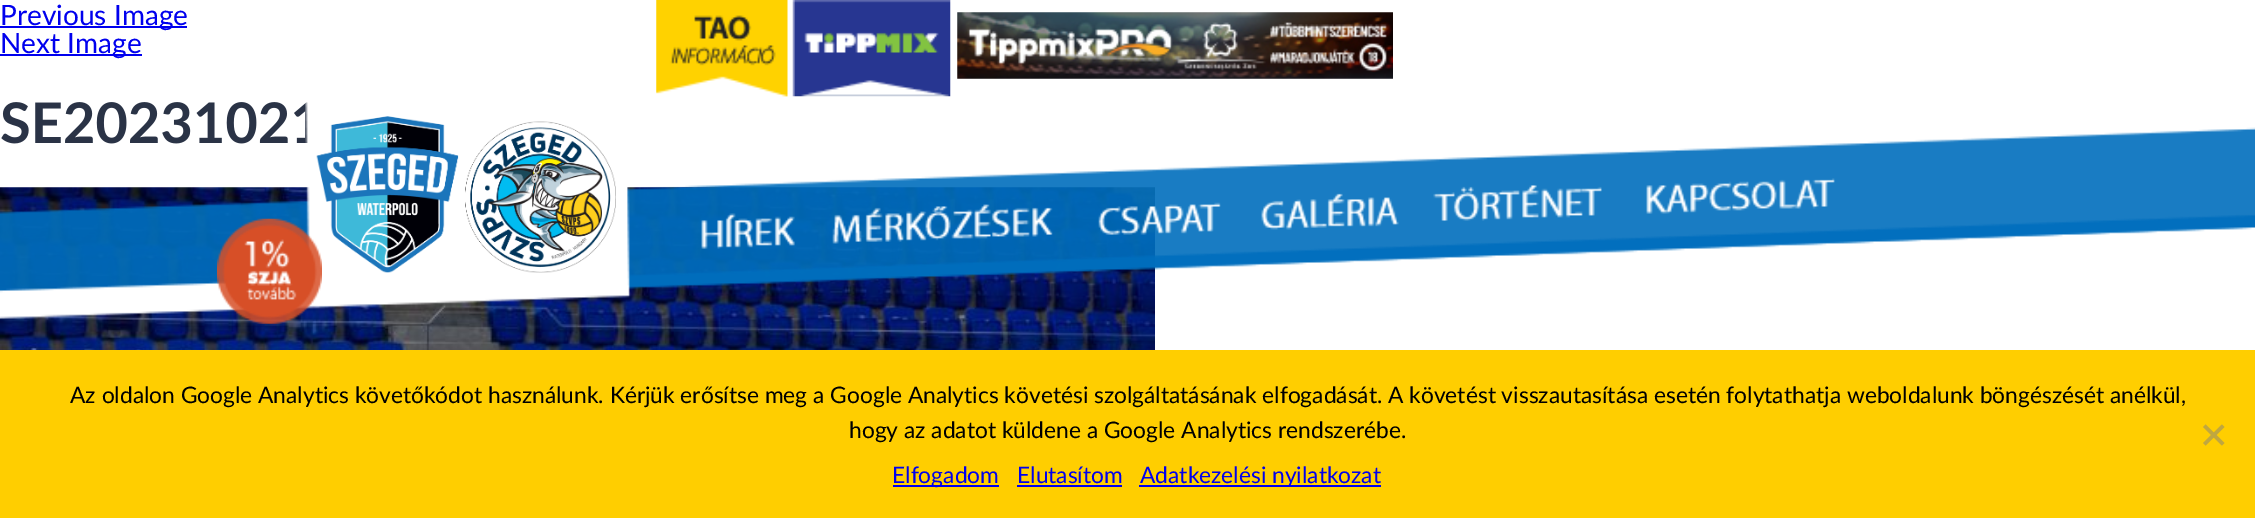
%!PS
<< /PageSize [2255 518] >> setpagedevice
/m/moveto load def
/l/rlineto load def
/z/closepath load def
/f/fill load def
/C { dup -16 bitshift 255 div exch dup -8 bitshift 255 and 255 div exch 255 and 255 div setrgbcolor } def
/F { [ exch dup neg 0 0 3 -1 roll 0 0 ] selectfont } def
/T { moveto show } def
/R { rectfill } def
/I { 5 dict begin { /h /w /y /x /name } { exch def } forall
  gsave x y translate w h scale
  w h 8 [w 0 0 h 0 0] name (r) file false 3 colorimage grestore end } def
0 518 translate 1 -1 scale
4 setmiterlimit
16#FFFFFF C
0 0 2255 518 R
16#0000EE C
0 26 187 2 R
/Lato-Regular 28 F
(Previous Image) 0 25 T
0 54 142 2 R
(Next Image) 0 53 T
/Lato-Bold 56 F
16#2A3346 C
(SE2023102) 0 143 T
(1.rgb) 0 187 1155 163 I
(2.rgb) 656 0 132 97 I
(3.rgb) 792 0 159 97 I
(4.rgb) 957 12 436 67 I
(5.rgb) 0 100 2255 219 I
(6.rgb) 316 116 300 157 I
(7.rgb) 701 213 94 36 I
(8.rgb) 832 204 221 40 I
(9.rgb) 1098 202 123 33 I
(10.rgb) 1261 193 138 37 I
(11.rgb) 1433 185 169 36 I
(12.rgb) 1646 178 189 36 I
(13.rgb) 217 218 105 106 I
16#FFCE00 C
0 350 2255 168 R
/Lato-Regular 22.75 F
16#000000 C
(Az oldalon Google Analytics követőkódot használunk. Kérjük erősítse meg a Google Analytics követési szolgáltatásának elfogadását. A követést visszautasítása esetén folytathatja weboldalunk böngészését anélkül,) 70 403 T
(hogy az adatot küldene a Google Analytics rendszerébe.) 849 438 T
16#C0A740 C
2222 424.5 m 2.5 2.5 l -19 18.5 l -2.5 -2.5 l z f
2203 427 m 2.5 -2.5 l 19 18.5 l -2.5 2.5 l z f
16#0000EE C
893 485 106 2 R
(Elfogadom) 892 483 T
(Elutasítom) 1017 483 T
1017 485 105 2 R
1139 485 242 2 R
(Adatkezelési nyilatkozat) 1140 483 T
showpage
